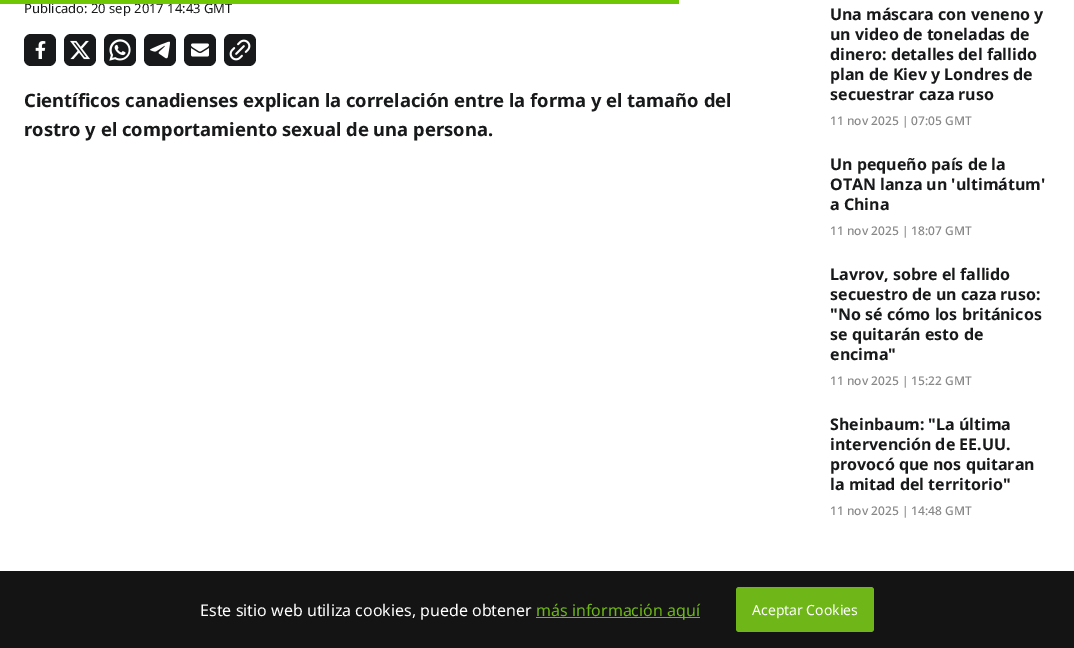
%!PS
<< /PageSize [1074 648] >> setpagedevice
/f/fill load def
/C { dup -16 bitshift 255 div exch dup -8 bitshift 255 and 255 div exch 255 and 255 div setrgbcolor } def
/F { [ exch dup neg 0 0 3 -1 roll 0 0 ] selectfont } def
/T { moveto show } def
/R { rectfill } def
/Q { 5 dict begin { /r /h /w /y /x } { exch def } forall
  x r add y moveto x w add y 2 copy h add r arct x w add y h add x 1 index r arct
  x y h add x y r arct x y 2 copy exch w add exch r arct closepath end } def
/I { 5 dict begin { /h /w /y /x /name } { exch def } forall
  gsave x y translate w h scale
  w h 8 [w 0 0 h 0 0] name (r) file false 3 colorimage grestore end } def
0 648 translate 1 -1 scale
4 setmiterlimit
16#FFFFFF C
0 0 1074 648 R
/NotoSans-Regular 13 F
16#18191A C
(Publicado:) 24 13 T
(20 sep 2017 14:43 GMT) 91 13 T
16#6EC702 C
0 0 679 4 R
16#18191A C
24 34 32 32 7 Q f
(1.rgb) 35 41 11 18 I
64 34 32 32 7 Q f
(2.rgb) 70 40 20 20 I
104 34 32 32 7 Q f
(3.rgb) 109 39 22 22 I
144 34 32 32 7 Q f
(4.rgb) 150 41 20 18 I
184 34 32 32 7 Q f
(5.rgb) 191 43 18 14 I
224 34 32 32 7 Q f
(6.rgb) 229 39 22 22 I
/NotoSans-Bold 18.4 F
(Científicos canadienses explican la correlación entre la forma y el tamaño del) 24 107 T
(rostro y el comportamiento sexual de una persona.) 24 136 T
/NotoSans-Bold 16 F
(Una máscara con veneno y) 830 20 T
(un video de toneladas de) 830 40 T
(dinero: detalles del fallido) 830 60 T
(plan de Kiev y Londres de) 830 80 T
(secuestrar caza ruso) 830 100 T
/NotoSans-Medium 12 F
16#888888 C
(11 nov 2025 | 07:05 GMT) 830 125 T
/NotoSans-Bold 16 F
16#18191A C
(Un pequeño país de la) 830 170 T
(OTAN lanza un 'ultimátum') 830 190 T
(a China) 830 210 T
/NotoSans-Medium 12 F
16#888888 C
(11 nov 2025 | 18:07 GMT) 830 235 T
/NotoSans-Bold 16 F
16#18191A C
(Lavrov, sobre el fallido) 830 280 T
(secuestro de un caza ruso:) 830 300 T
("No sé cómo los británicos) 830 320 T
(se quitarán esto de) 830 340 T
(encima") 830 360 T
/NotoSans-Medium 12 F
16#888888 C
(11 nov 2025 | 15:22 GMT) 830 385 T
/NotoSans-Bold 16 F
16#18191A C
(Sheinbaum: "La última) 830 430 T
(intervención de EE.UU.) 830 450 T
(provocó que nos quitaran) 830 470 T
(la mitad del territorio") 830 490 T
/NotoSans-Medium 12 F
16#888888 C
(11 nov 2025 | 14:48 GMT) 830 515 T
16#141414 C
0 571 1074 77 R
/NotoSans-Regular 16 F
16#FFFFFF C
(Este sitio web utiliza cookies, puede obtener) 200 616 T
16#6FB719 C
536 617 164 1 R
(más información aquí) 536 616 T
736 587 138 45 3 Q f
/NotoSans-Regular 14 F
16#FFFFFF C
(Aceptar Cookies) 752 615 T
showpage
